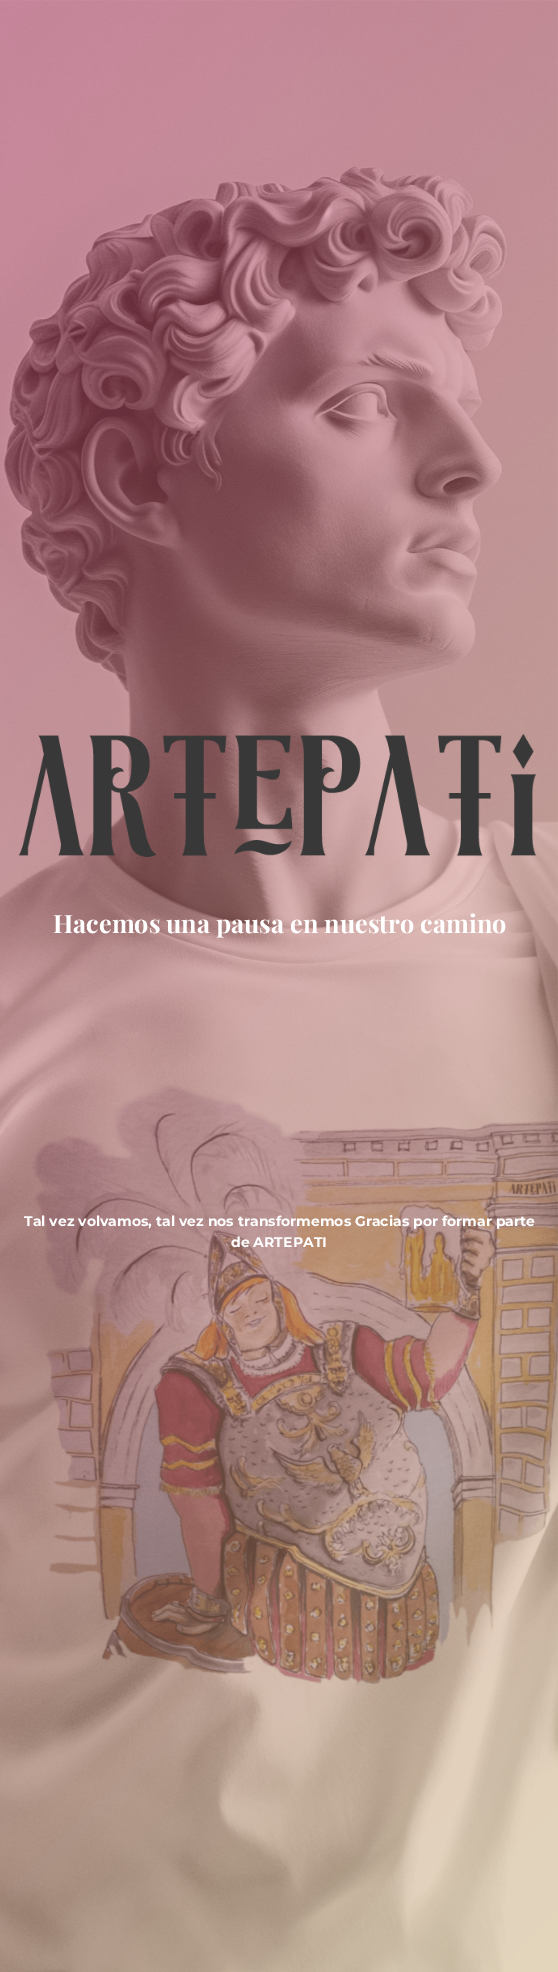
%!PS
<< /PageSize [558 1972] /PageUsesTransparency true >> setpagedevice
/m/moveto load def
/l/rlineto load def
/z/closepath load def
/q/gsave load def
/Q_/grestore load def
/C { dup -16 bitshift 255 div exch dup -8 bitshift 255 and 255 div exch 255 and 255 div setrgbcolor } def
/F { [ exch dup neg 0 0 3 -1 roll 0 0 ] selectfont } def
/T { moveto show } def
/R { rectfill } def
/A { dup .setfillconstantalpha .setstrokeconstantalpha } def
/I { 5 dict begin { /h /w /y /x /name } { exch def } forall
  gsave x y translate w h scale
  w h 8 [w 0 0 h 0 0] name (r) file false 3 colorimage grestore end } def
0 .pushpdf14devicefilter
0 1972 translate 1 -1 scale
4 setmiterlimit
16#FFFFFF C
0 0 558 1972 R
(1.rgb) 0 0 558 1972 I
0.4 A
q 0 0 m 558 0 l 0 1972 l -558 0 l z clip newpath
<< /ShadingType 2 /ColorSpace /DeviceRGB /Coords [-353 354 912 1619] /Extend [true true] /Function << /FunctionType 2 /Domain [0 1] /C0 [.835 .2 .412] /C1 [.796 .678 .427] /N 1 >> >> shfill Q_
1 A
(2.rgb) 18 734 518 123 I
/PlayfairDisplay-Bold 25.25 F
(Hacemos una pausa en nuestro camino) 53 933 T
/Montserrat-Bold 14 F
(Tal vez volvamos, tal vez nos transformemos Gracias por formar parte) 24 1226 T
(de ARTEPATI) 231 1247 T
.poppdf14devicefilter showpage
